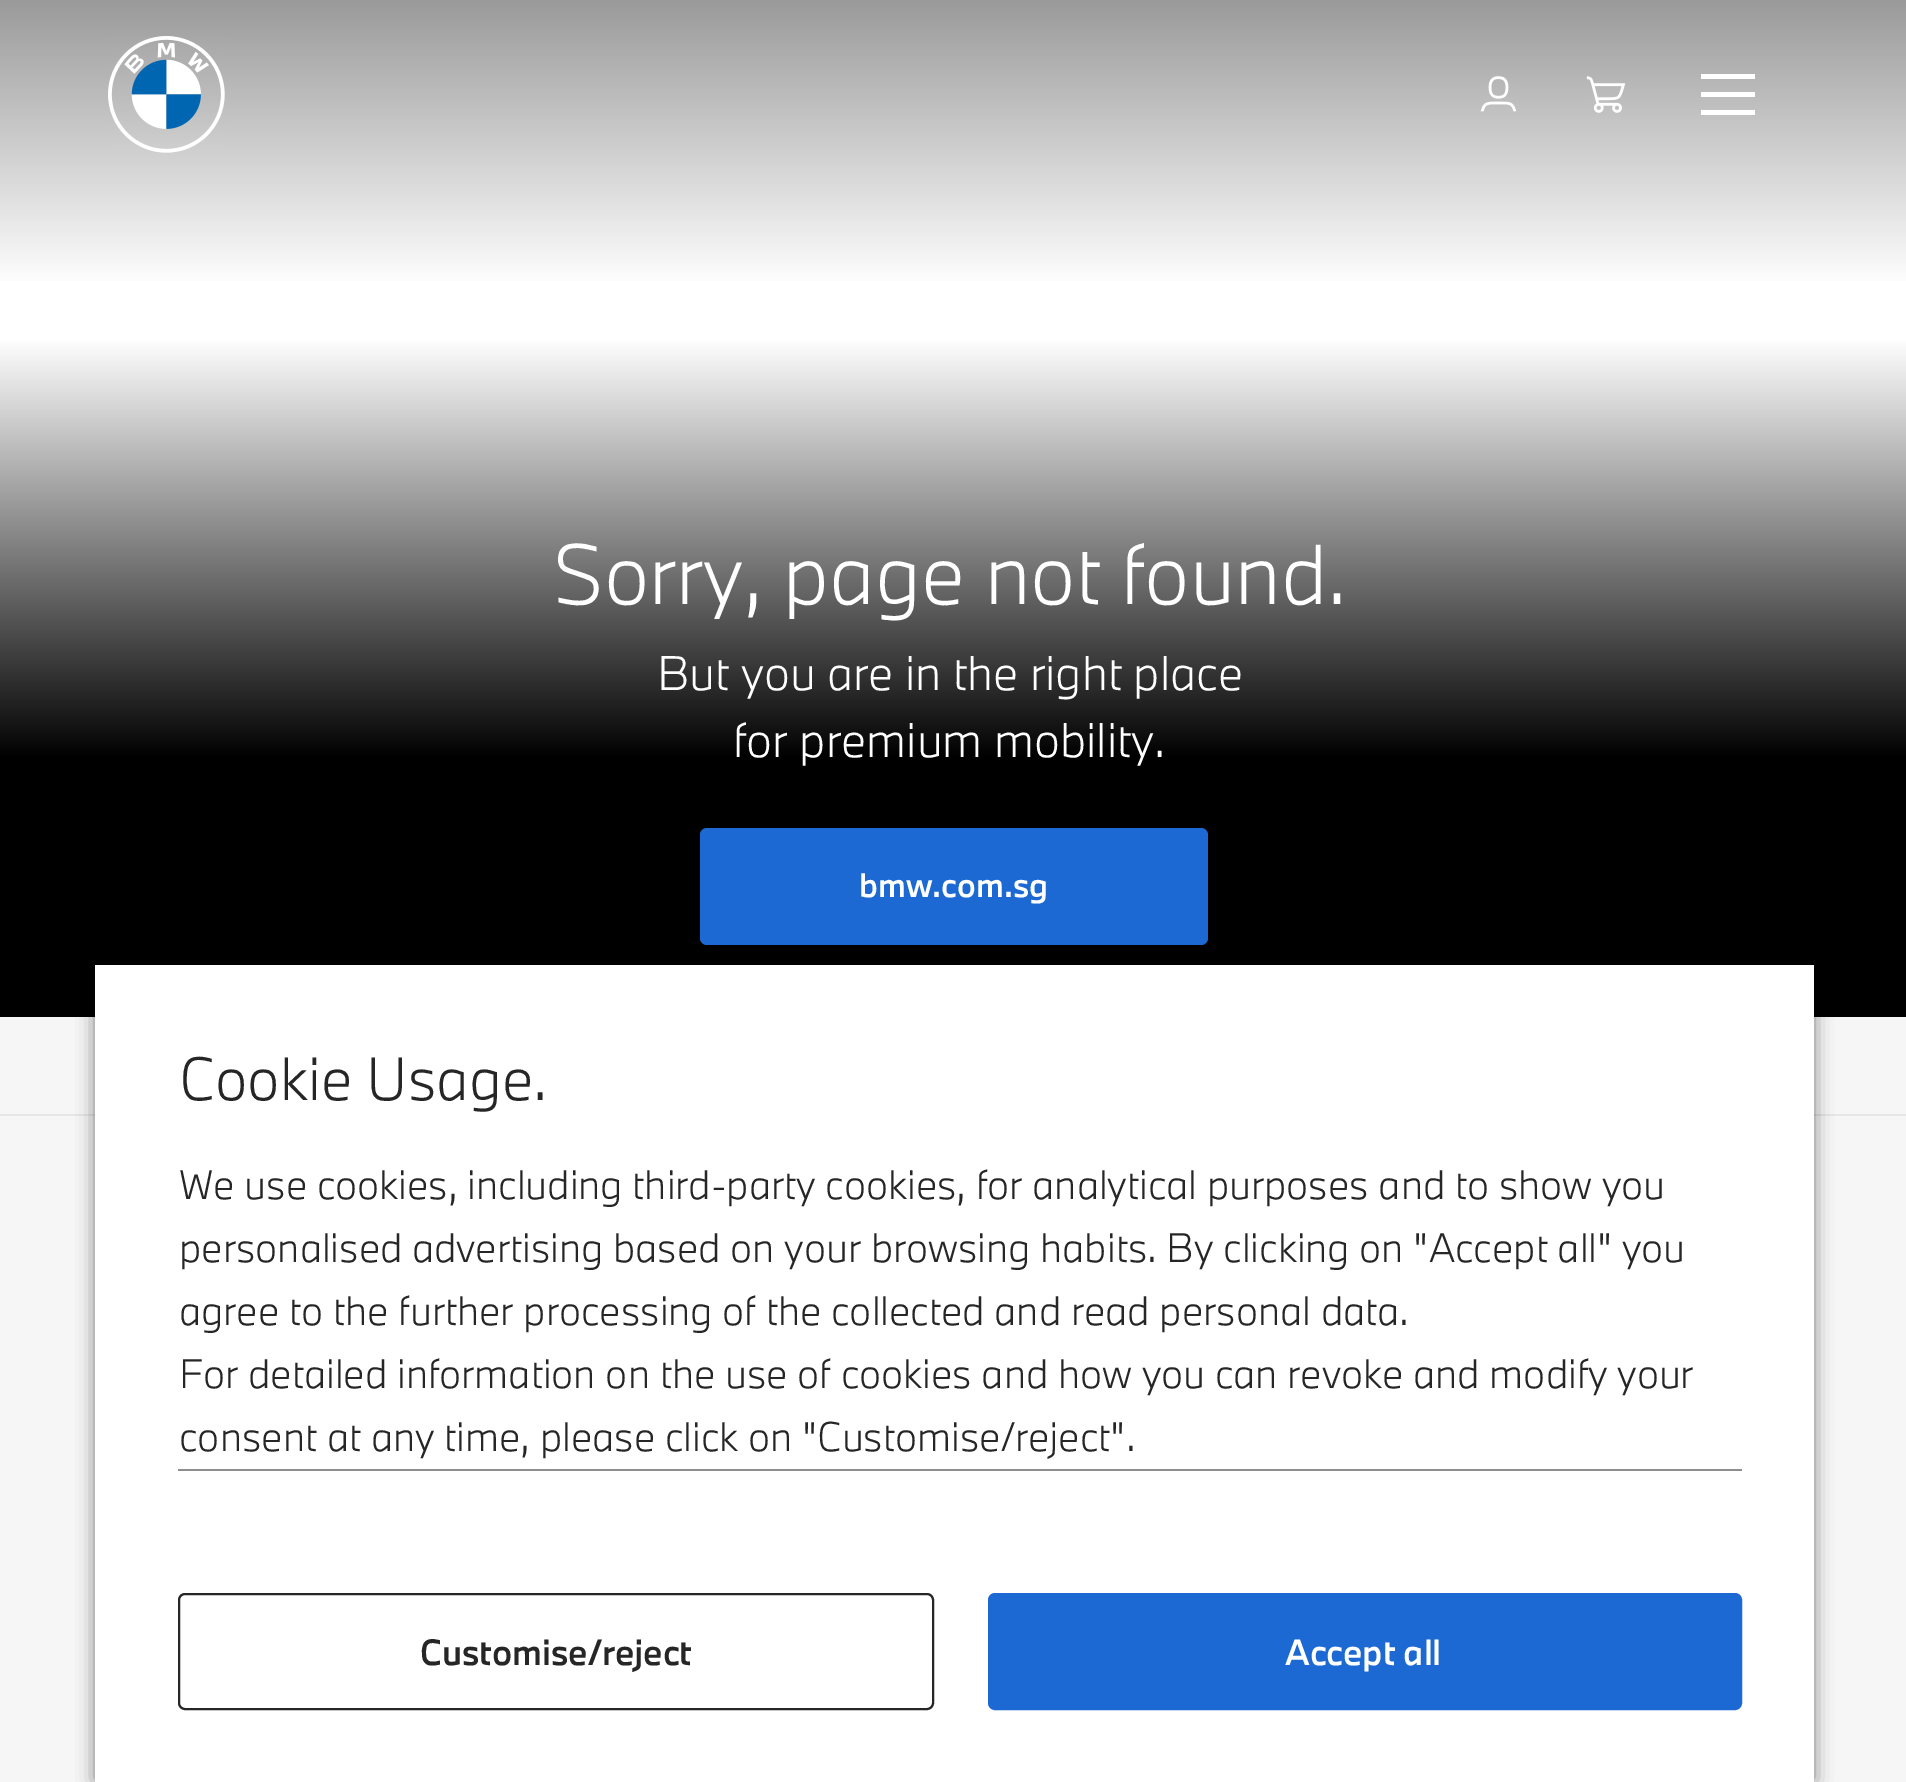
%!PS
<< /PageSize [1906 1782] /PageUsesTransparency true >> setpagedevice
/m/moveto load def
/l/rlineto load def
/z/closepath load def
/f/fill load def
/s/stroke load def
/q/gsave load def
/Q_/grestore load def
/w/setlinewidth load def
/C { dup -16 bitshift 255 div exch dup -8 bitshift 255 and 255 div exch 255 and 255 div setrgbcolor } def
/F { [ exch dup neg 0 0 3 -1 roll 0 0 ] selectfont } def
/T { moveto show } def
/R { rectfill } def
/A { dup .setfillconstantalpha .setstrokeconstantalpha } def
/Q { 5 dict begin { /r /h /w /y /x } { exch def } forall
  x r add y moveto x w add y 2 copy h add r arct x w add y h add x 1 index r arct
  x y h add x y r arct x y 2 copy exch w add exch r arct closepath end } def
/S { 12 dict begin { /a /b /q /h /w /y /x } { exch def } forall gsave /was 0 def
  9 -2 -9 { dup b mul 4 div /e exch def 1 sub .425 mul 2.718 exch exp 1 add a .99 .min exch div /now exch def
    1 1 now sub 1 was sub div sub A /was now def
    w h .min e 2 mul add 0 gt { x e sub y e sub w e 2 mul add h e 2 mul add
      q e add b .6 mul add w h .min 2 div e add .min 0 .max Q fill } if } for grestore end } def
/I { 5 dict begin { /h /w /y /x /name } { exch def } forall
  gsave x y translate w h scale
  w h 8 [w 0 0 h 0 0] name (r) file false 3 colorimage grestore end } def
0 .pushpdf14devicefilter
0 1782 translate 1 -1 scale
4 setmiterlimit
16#FFFFFF C
0 0 1906 1782 R
q 0 0 m 1906 0 l 0 281 l -1906 0 l z clip newpath
<< /ShadingType 2 /ColorSpace /DeviceRGB /Coords [954 288 954 0] /Extend [true true] /Function << /FunctionType 2 /Domain [0 1] /C0 [1 1 1] /C1 [.604 .604 .604] /N 1 >> >> shfill Q_
(1.rgb) 108 36 117 117 I
(2.rgb) 1480 76 37 36 I
(3.rgb) 1586 76 40 37 I
1755 97 m -54 0 l 0 -5 l 54 0 l z 1755 79 m -54 0 l 0 -5 l 54 0 l z 1755 115 m -54 0 l 0 -5 l 54 0 l z f
q 0 341 m 1906 0 l 0 676 l -1906 0 l z clip newpath
<< /ShadingType 2 /ColorSpace /DeviceRGB /Coords [954 337 954 1017] /Extend [true true] /Function << /FunctionType 3 /Domain [0 1] /Functions [<< /FunctionType 2 /Domain [0 1] /C0 [1 1 1] /C1 [0 0 0] /N 1 >> << /FunctionType 2 /Domain [0 1] /C0 [0 0 0] /C1 [0 0 0] /N 1 >>] /Bounds [.62] /Encode [0 1 0 1] >> >> shfill Q_
/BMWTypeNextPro-Light 78.75 F
(Sorry, page not found.) 553 604 T
/BMWTypeNextPro-Light 45 F
(But you are in the right place) 657 690 T
(for premium mobility.) 733 757 T
16#1C69D4 C
700 828 508 117 7 Q f
/BMWTypeNextPro-Medium 31.5 F
16#FFFFFF C
(bmw.com.sg) 859 897 T
16#F6F6F6 C
0 1017 1906 765 R
16#E6E6E6 C
0 1114 1906 2 R
16#000000 C
95 963 1719 817 0 9 .5 S
16#FFFFFF C
95 965 1719 817 R
/BMWTypeNextPro-Light 56.25 F
16#262626 C
(Cookie Usage.) 179 1100 T
/BMWTypeNextPro-Light 38.25 F
(We use cookies, including third-party cookies, for analytical purposes and to show you) 179 1199 T
(personalised advertising based on your browsing habits. By clicking on "Accept all" you) 179 1262 T
(agree to the further processing of the collected and read personal data.) 179 1325 T
(For detailed information on the use of cookies and how you can revoke and modify your) 179 1388 T
(consent at any time, please click on "Customise/reject".) 179 1451 T
16#8E8E8E C
178 1469 1564 2 R
16#262626 C
2 w
179 1594 754 115 6 Q s
/BMWTypeNextPro-Medium 33.75 F
(Customise/reject) 420 1665 T
16#1C69D4 C
989 1594 752 115 6 Q q f Q_
s
16#FFFFFF C
(Accept all) 1285 1665 T
.poppdf14devicefilter showpage
